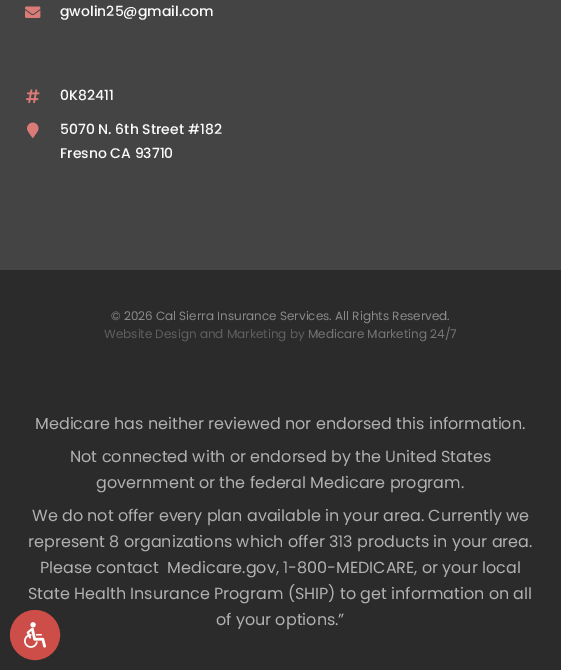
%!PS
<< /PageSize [561 670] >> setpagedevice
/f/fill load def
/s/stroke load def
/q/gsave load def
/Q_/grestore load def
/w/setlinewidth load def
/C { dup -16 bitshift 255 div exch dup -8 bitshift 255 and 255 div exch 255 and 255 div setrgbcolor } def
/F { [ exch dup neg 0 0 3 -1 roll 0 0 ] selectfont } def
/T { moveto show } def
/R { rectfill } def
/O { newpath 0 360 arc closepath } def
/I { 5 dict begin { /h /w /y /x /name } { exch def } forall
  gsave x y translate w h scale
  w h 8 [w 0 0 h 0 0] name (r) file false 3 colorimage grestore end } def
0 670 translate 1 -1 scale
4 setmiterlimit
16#444444 C
0 0 561 670 R
(1.rgb) 25 6 16 12 I
/Poppins-Medium 14 F
16#FAFAFA C
(gwolin25@gmail.com) 60 16 T
(2.rgb) 26 89 14 14 I
(0K82411) 60 100 T
(3.rgb) 27 122 12 16 I
(5070 N. 6th Street #182) 60 134 T
(Fresno CA 93710) 60 158 T
16#2B2B2B C
0 270 561 400 R
/Poppins-Regular 12 F
16#8A8A8A C
(© 2026 Cal Sierra Insurance Services. All Rights Reserved.) 111 320 T
16#606060 C
(Website Design and Marketing by) 104 338 T
16#757575 C
(Medicare Marketing 24/7) 308 338 T
/Poppins-Regular 16 F
16#B0B0B0 C
(Medicare has neither reviewed nor endorsed this information.) 35 429 T
(Not connected with or endorsed by the United States) 70 462 T
(government or the federal Medicare program.) 96 488 T
(We do not offer every plan available in your area. Currently we) 32 521 T
(represent 8 organizations which offer 313 products in your area.) 28 547 T
(Please contact  Medicare.gov, 1-800-MEDICARE, or your local) 40 573 T
(State Health Insurance Program \(SHIP\) to get information on all) 28 599 T
(of your options.”) 216 625 T
16#CD4E49 C
35 635 24 O q f Q_
2 w
s
(4.rgb) 24 622 22 26 I
showpage
